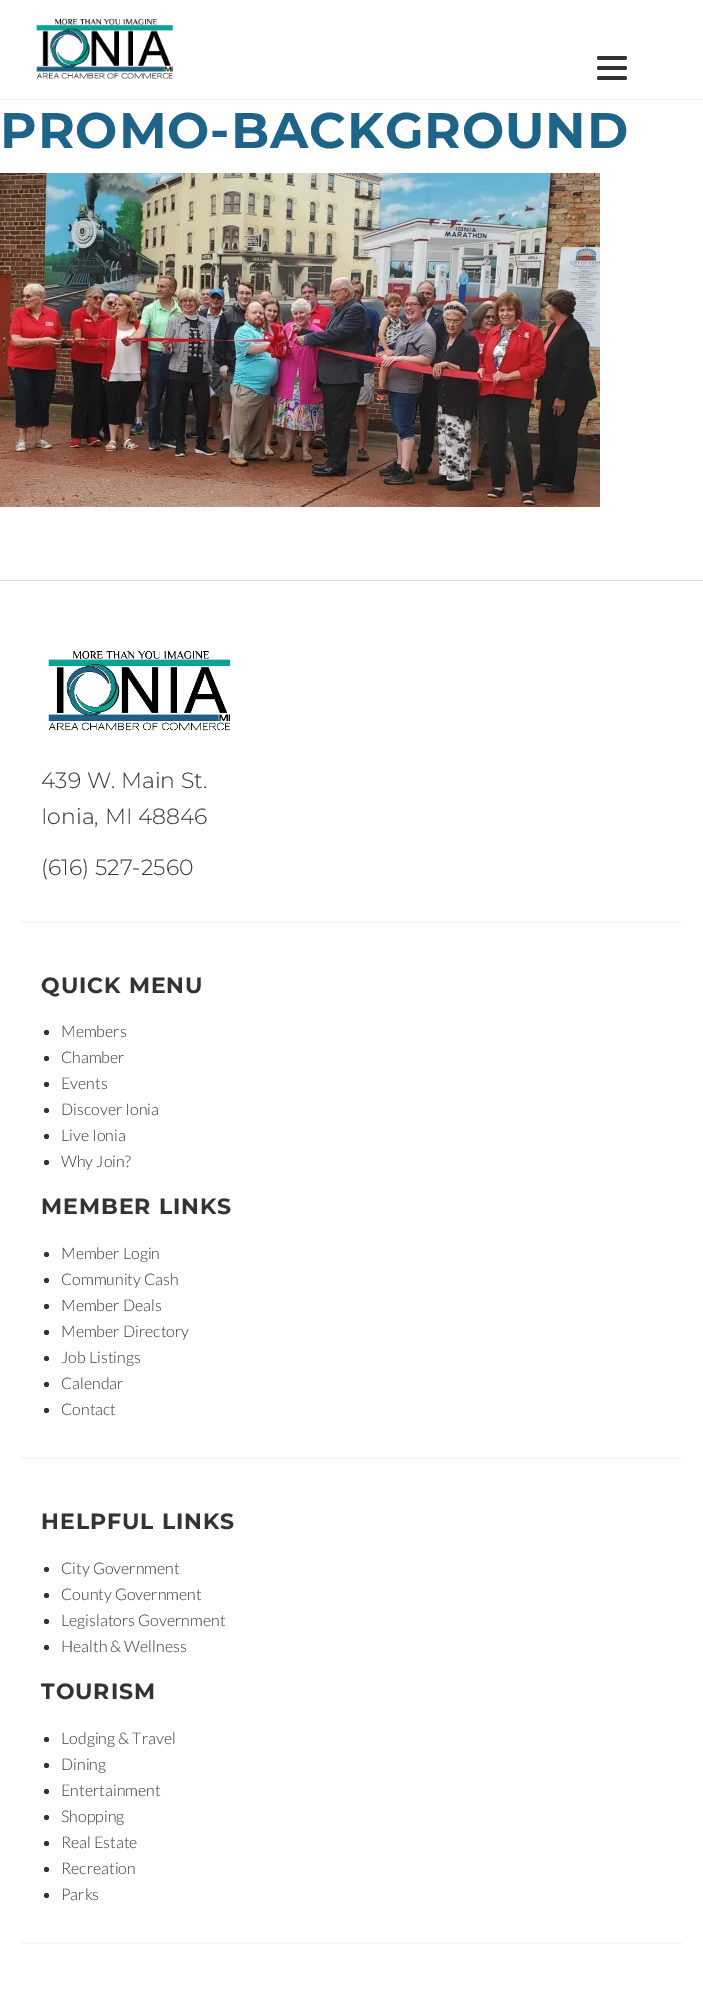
%!PS
<< /PageSize [703 1992] >> setpagedevice
/m/moveto load def
/f/fill load def
/C { dup -16 bitshift 255 div exch dup -8 bitshift 255 and 255 div exch 255 and 255 div setrgbcolor } def
/F { [ exch dup neg 0 0 3 -1 roll 0 0 ] selectfont } def
/T { moveto show } def
/R { rectfill } def
/O { newpath 0 360 arc closepath } def
/Q { 5 dict begin { /r /h /w /y /x } { exch def } forall
  x r add y moveto x w add y 2 copy h add r arct x w add y h add x 1 index r arct
  x y h add x y r arct x y 2 copy exch w add exch r arct closepath end } def
/I { 5 dict begin { /h /w /y /x /name } { exch def } forall
  gsave x y translate w h scale
  w h 8 [w 0 0 h 0 0] name (r) file false 3 colorimage grestore end } def
0 1992 translate 1 -1 scale
4 setmiterlimit
16#FFFFFF C
0 0 703 1992 R
16#333333 C
597 66 30 4 2 Q f
597 56 30 4 2 Q f
597 76 30 4 2 Q f
16#EEEEEE C
0 99 703 1 R
(1.rgb) 36 18 138 61 I
/Montserrat-Bold 50 F
16#1E6388 C
0 148 m 1 0 (PROMO-BACKGROUND) ashow
(2.rgb) 0 173 600 334 I
16#DDDDDD C
0 580 703 1 R
16#F4F7F6 C
21 921 661 2 R
(3.rgb) 48 650 183 81 I
/Montserrat-Light 22 F
16#333333 C
(439 W. Main St.) 41 788 T
(Ionia, MI 48846) 41 824 T
(\(616\) 527-2560) 41 875 T
16#F4F7F6 C
21 1457 661 2 R
/Montserrat-Bold 22 F
16#333333 C
41 993 m 1 0 (QUICK MENU) ashow
46.5 1032.5 2.5 O f
/Lato-Light 16 F
(Members) 61 1037 T
46.5 1058.5 2.5 O f
(Chamber) 61 1063 T
46.5 1084.5 2.5 O f
(Events) 61 1089 T
46.5 1110.5 2.5 O f
(Discover Ionia) 61 1115 T
46.5 1136.5 2.5 O f
(Live Ionia) 61 1141 T
46.5 1162.5 2.5 O f
(Why Join?) 61 1167 T
/Montserrat-Bold 22 F
41 1214 m 1 0 (MEMBER LINKS) ashow
46.5 1254.5 2.5 O f
/Lato-Light 16 F
(Member Login) 61 1259 T
46.5 1280.5 2.5 O f
(Community Cash) 61 1285 T
46.5 1306.5 2.5 O f
(Member Deals) 61 1311 T
46.5 1332.5 2.5 O f
(Member Directory) 61 1337 T
46.5 1358.5 2.5 O f
(Job Listings) 61 1363 T
46.5 1384.5 2.5 O f
(Calendar) 61 1389 T
46.5 1410.5 2.5 O f
(Contact) 61 1415 T
16#F4F7F6 C
21 1942 661 2 R
/Montserrat-Bold 22 F
16#333333 C
41 1529 m 1 0 (HELPFUL LINKS) ashow
46.5 1569.5 2.5 O f
/Lato-Light 16 F
(City Government) 61 1574 T
46.5 1595.5 2.5 O f
(County Government) 61 1600 T
46.5 1621.5 2.5 O f
(Legislators Government) 61 1626 T
46.5 1647.5 2.5 O f
(Health & Wellness) 61 1652 T
/Montserrat-Bold 22 F
41 1699 m 1 0 (TOURISM) ashow
46.5 1739.5 2.5 O f
/Lato-Light 16 F
(Lodging & Travel) 61 1744 T
46.5 1765.5 2.5 O f
(Dining) 61 1770 T
46.5 1791.5 2.5 O f
(Entertainment) 61 1796 T
46.5 1817.5 2.5 O f
(Shopping) 61 1822 T
46.5 1843.5 2.5 O f
(Real Estate) 61 1848 T
46.5 1869.5 2.5 O f
(Recreation) 61 1874 T
46.5 1895.5 2.5 O f
(Parks) 61 1900 T
showpage
